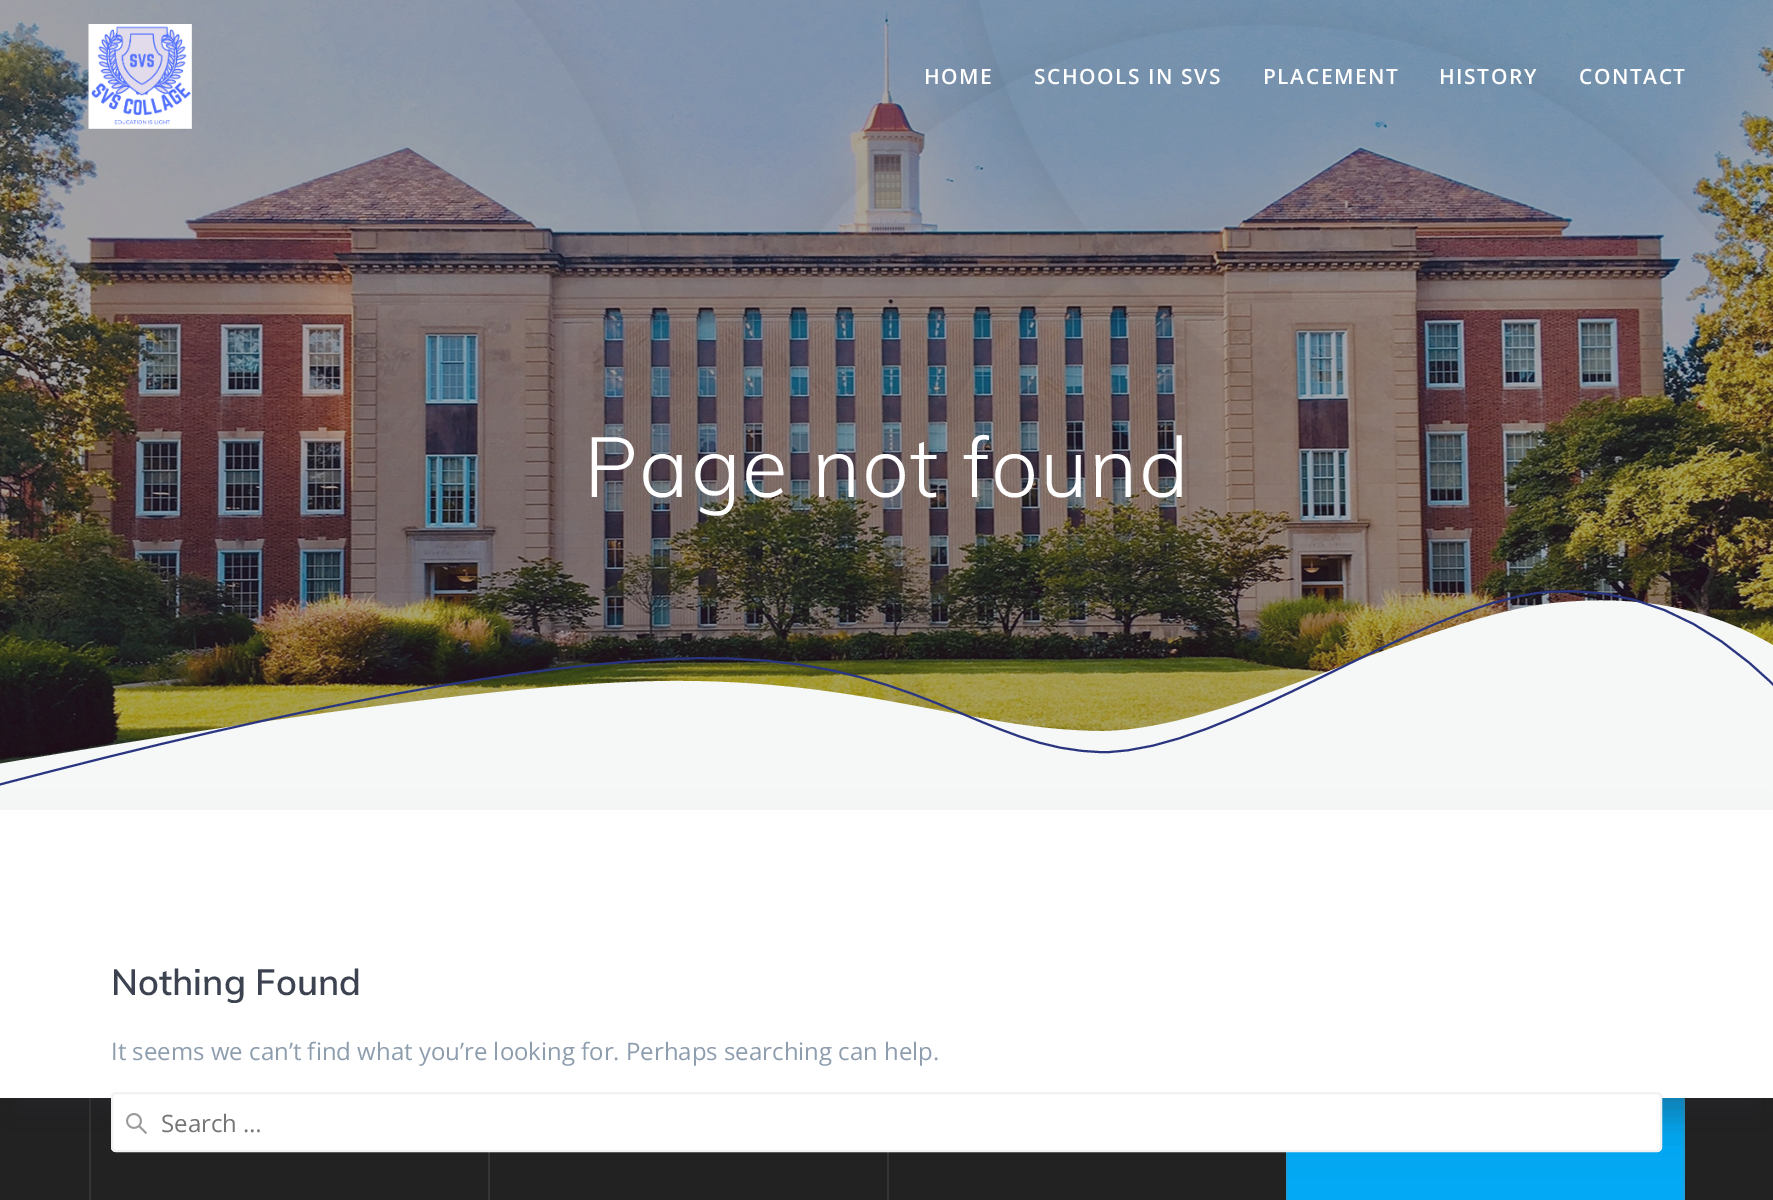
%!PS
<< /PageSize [1773 1200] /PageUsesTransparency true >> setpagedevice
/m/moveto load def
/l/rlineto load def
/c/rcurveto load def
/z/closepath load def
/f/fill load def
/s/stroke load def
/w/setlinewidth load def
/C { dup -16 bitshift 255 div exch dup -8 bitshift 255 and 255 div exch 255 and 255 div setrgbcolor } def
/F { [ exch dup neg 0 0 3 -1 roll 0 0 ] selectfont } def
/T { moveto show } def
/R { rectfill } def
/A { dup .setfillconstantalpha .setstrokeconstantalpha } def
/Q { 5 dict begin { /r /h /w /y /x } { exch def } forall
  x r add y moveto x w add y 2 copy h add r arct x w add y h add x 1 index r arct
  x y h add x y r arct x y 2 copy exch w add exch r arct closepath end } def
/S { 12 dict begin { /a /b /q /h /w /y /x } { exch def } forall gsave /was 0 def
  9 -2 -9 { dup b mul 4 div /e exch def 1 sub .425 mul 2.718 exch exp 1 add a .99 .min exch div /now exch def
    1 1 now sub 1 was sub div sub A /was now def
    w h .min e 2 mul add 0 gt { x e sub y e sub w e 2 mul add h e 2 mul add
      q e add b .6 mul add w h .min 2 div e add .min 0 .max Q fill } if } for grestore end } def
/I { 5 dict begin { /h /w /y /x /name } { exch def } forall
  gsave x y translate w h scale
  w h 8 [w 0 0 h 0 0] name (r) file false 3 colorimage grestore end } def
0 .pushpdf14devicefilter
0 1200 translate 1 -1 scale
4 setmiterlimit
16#222222 C
0 0 1773 1200 R
(2.rgb) 0 0 1773 764 I
(1.rgb) 88 24 104 105 I
(3.rgb) 515 0 1244 709 I
/OpenSans-SemiBold 21 F
16#FFFFFF C
924 84 m 1.5 0 (HOME) ashow
1034 84 m 1.5 0 (SCHOOLS IN SVS) ashow
1263 84 m 1.5 0 (PLACEMENT) ashow
1439 84 m 1.5 0 (HISTORY) ashow
1579 84 m 1.5 0 (CONTACT) ashow
/Muli-Light 84 F
584 497 m 1.4 0 (Page not found) ashow
16#F6F7F7 C
-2 764 m 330 -56 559 -84 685 -83 c 189 1 297 50 419 50 c 123 0 326 -115 452 -128 c 85 -9 159 6 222 44 c 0 166 l -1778 3 l z f
16#2A3580 C
2 w
-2 785 m 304.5 -80 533.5 -122 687.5 -126.5 c 230.5 -7 296 93.5 418.5 93.5 c 122.5 0 311.5 -146.5 438.5 -159.5 c 84.5 -8.5 162.5 23.5 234 95.5 c s
16#353535 C
89 1098 2 102 R
488 1152 2 48 R
887 1152 2 48 R
16#03A9F4 C
1288 1098 395 102 R
16#1CA1DD C
1683 1098 2 102 R
1286 1152 2 48 R
16#000000 C
0 840 1773 288 0 22.5 .08 S
16#313439 C
15 855 1743 258 0 15 .3 S
16#FFFFFF C
0 810 1773 288 R
/Muli-SemiBold 36 F
16#3C424F C
(Nothing Found) 111 995 T
/OpenSans-Regular 24 F
16#8E9DAE C
(It seems we can’t find what you’re looking for. Perhaps searching can help.) 111 1060 T
16#FFFFFF C
111 1092 1551 60 5 Q f
(4.rgb) 126 1113 21 21 I
16#F1F1F1 C
112 1093 1549 58 4 Q s
16#757575 C
(Search …) 161 1132 T
.poppdf14devicefilter showpage
